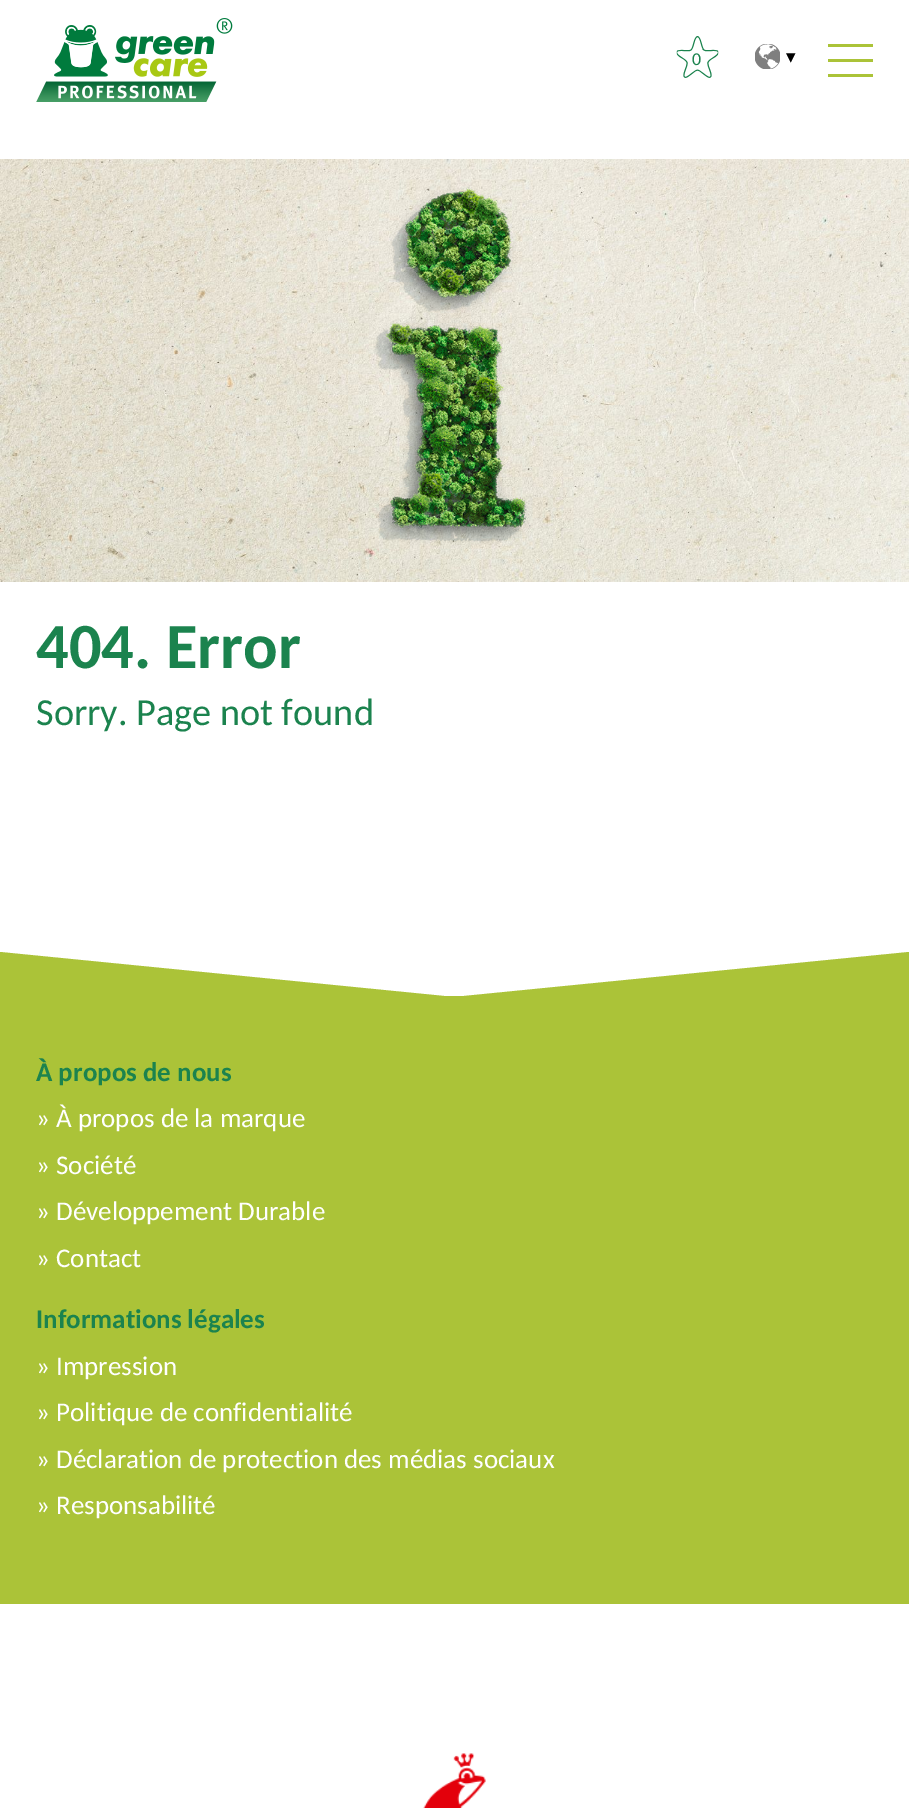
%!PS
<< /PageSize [909 1808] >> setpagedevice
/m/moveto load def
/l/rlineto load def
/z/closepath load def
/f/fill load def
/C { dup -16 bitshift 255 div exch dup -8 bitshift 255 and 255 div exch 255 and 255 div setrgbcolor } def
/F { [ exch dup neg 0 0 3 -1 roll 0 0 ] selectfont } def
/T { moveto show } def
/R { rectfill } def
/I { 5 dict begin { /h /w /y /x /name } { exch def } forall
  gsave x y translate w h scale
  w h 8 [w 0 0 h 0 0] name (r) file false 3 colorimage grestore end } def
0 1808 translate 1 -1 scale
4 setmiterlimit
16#FFFFFF C
0 0 909 1808 R
(1.rgb) 36 18 197 84 I
16#ABC338 C
828 44 45 3 R
828 59 45 3 R
828 74 45 3 R
(2.rgb) 676 36 43 42 I
/Carlito-Regular 18 F
16#1B834E C
(0) 692 65 T
(3.rgb) 755 44 25 25 I
/DejaVuSans-Regular 19 F
16#000000 C
(▾) 786 63 T
(4.rgb) 0 159 909 423 I
(5.rgb) 373 187 158 362 I
/Carlito-Bold 64.5 F
16#1B834E C
(404. Error) 36 668 T
/Carlito-Regular 38.25 F
(Sorry. Page not found) 36 725 T
16#ABC338 C
0 996 909 608 R
0 952 m 0 49 l 909 0 l 0 -49 l -455 45 l z f
/Carlito-Bold 27 F
16#1B834E C
(À propos de nous) 36 1081 T
/Carlito-Regular 27 F
16#FFFFFF C
(» À propos de la marque) 36 1127 T
(» Société) 36 1174 T
(» Développement Durable) 36 1220 T
(» Contact) 36 1267 T
/Carlito-Bold 27 F
16#1B834E C
(Informations légales) 36 1328 T
/Carlito-Regular 27 F
16#FFFFFF C
(» Impression) 36 1375 T
(» Politique de confidentialité) 36 1421 T
(» Déclaration de protection des médias sociaux) 36 1468 T
(» Responsabilité) 36 1514 T
(6.rgb) 423 1753 63 55 I
showpage
